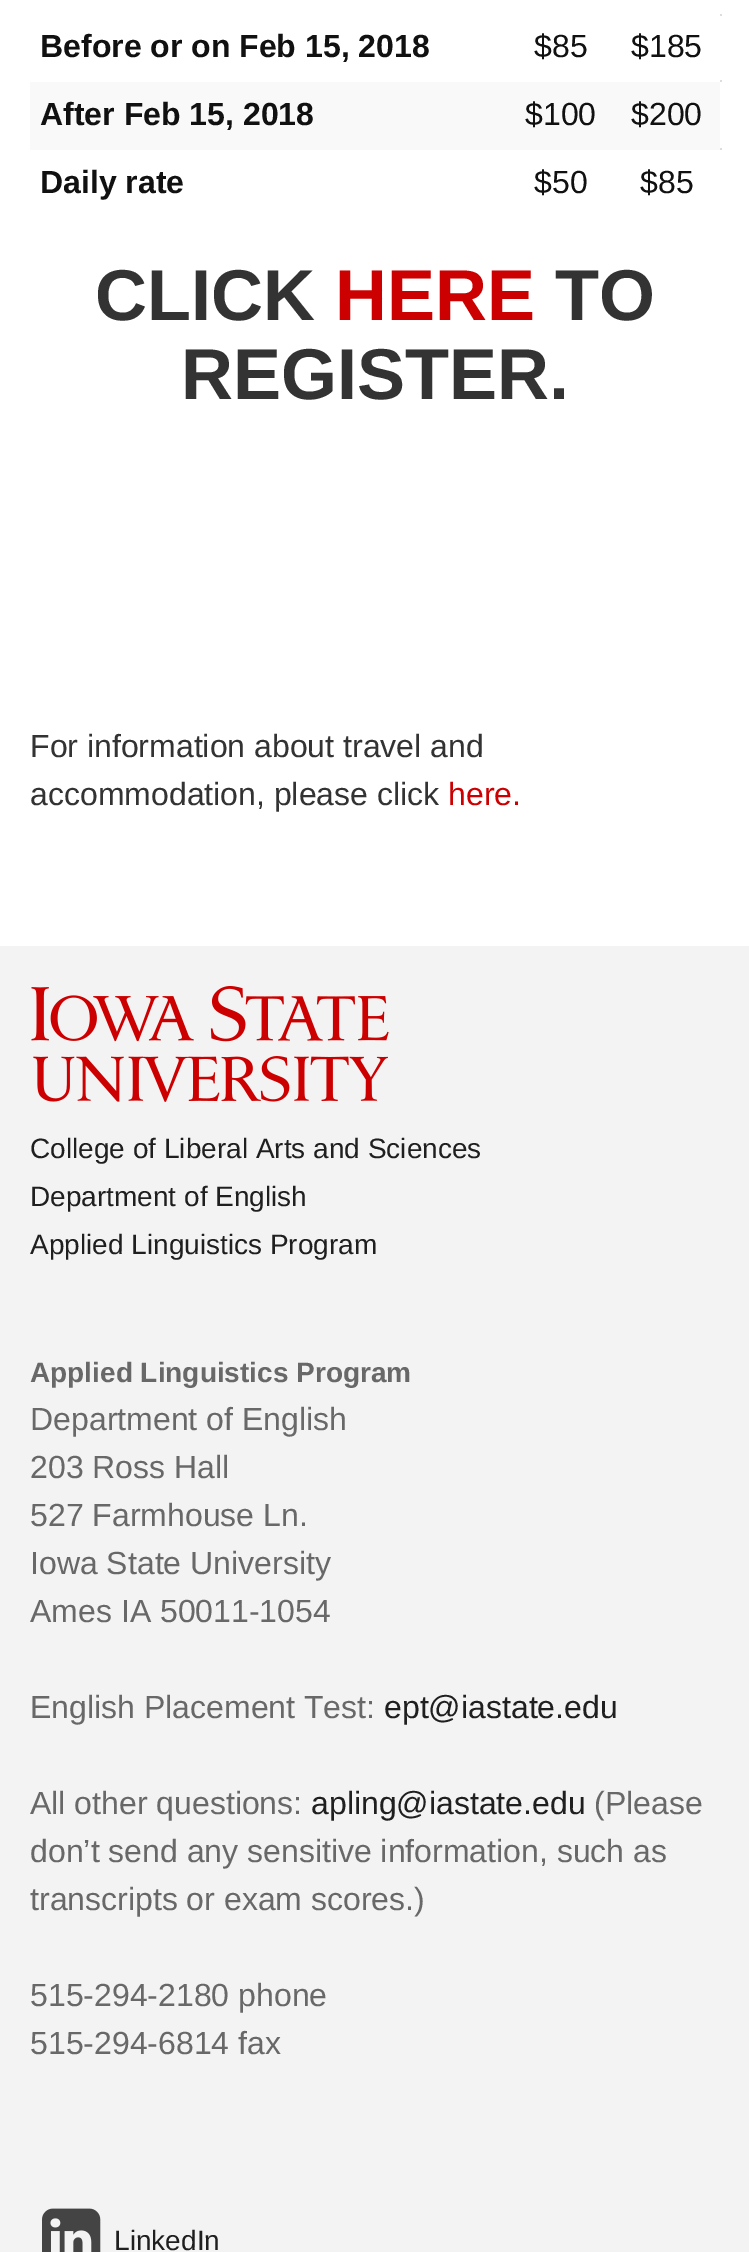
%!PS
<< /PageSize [749 2252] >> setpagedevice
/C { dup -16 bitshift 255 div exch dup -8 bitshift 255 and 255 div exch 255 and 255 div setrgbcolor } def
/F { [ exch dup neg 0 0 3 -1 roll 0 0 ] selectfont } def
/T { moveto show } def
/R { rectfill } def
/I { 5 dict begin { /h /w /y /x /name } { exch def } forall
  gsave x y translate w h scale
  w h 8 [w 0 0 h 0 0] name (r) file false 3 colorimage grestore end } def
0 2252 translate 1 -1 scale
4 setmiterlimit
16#F3F3F3 C
0 0 749 2252 R
16#FFFFFF C
0 0 749 946 R
/LiberationSans-Bold 32 F
16#111111 C
(Before or on Feb 15, 2018) 40 57 T
/LiberationSans-Regular 32 F
($85) 534 57 T
16#DDDDDD C
720 14 2 2 R
16#111111 C
($185) 631 57 T
16#F9F9F9 C
30 82 690 68 R
/LiberationSans-Bold 32 F
16#111111 C
(After Feb 15, 2018) 40 125 T
/LiberationSans-Regular 32 F
($100) 525 125 T
16#DDDDDD C
720 80 2 2 R
16#111111 C
($200) 631 125 T
/LiberationSans-Bold 32 F
(Daily rate) 40 193 T
/LiberationSans-Regular 32 F
($50) 534 193 T
16#DDDDDD C
720 148 2 2 R
16#111111 C
($85) 640 193 T
/LiberationSans-Bold 72 F
16#333333 C
(CLICK) 95 320 T
16#CC0000 C
(HERE) 335 320 T
16#333333 C
(TO) 555 320 T
(REGISTER.) 181 399 T
/LiberationSans-Regular 32 F
(For information about travel and) 30 757 T
(accommodation, please click) 30 805 T
16#CC0000 C
(here.) 448 805 T
(1.rgb) 31 986 358 116 I
/LiberationSans-Regular 28 F
16#1F1F1F C
(College of Liberal Arts and Sciences) 30 1158 T
(Department of English) 30 1206 T
(Applied Linguistics Program) 30 1254 T
/LiberationSans-Bold 28 F
16#686868 C
(Applied Linguistics Program) 30 1382 T
/LiberationSans-Regular 32 F
(Department of English) 30 1430 T
(203 Ross Hall) 30 1478 T
(527 Farmhouse Ln.) 30 1526 T
(Iowa State University) 30 1574 T
(Ames IA 50011-1054) 30 1622 T
(English Placement Test:) 30 1718 T
16#1F1F1F C
(ept@iastate.edu) 384 1718 T
16#686868 C
(All other questions:) 30 1814 T
16#1F1F1F C
(apling@iastate.edu) 311 1814 T
16#686868 C
(\(Please) 594 1814 T
(don’t send any sensitive information, such as) 30 1862 T
(transcripts or exam scores.\)) 30 1910 T
(515-294-2180 phone) 30 2006 T
(515-294-6814 fax) 30 2054 T
(2.rgb) 42 2208 59 44 I
/LiberationSans-Regular 28 F
16#1F1F1F C
(LinkedIn) 114 2250 T
showpage
